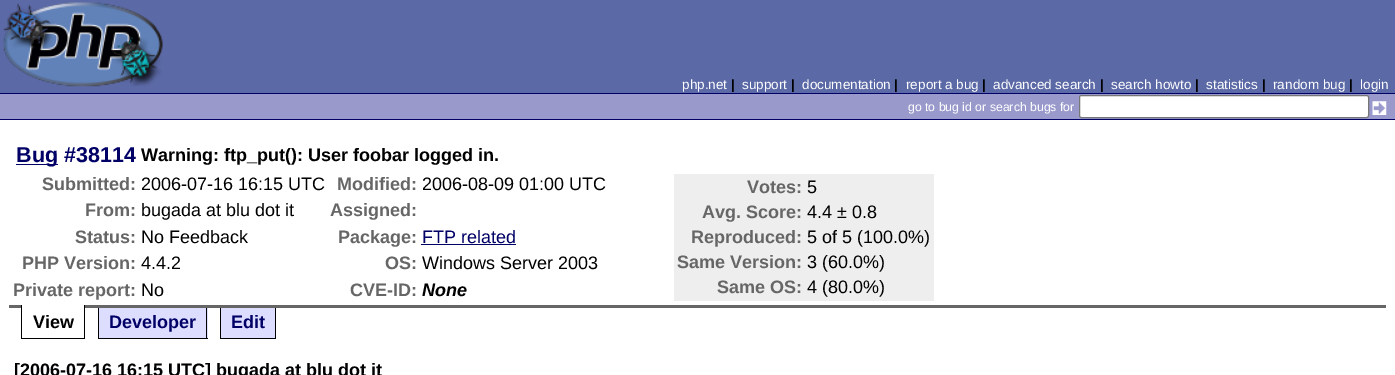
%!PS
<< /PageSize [1395 375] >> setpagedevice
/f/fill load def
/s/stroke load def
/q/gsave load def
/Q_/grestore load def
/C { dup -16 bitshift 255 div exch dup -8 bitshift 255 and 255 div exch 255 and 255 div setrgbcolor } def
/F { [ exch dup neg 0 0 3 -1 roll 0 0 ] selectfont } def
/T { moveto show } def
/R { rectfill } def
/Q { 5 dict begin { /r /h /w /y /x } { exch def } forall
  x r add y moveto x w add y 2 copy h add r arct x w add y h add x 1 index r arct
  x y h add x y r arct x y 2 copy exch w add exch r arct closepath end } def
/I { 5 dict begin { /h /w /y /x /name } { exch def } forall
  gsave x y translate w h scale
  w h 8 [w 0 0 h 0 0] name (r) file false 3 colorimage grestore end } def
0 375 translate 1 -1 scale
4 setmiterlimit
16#FFFFFF C
0 0 1395 375 R
16#5B69A6 C
0 0 1395 93 R
(1.rgb) 3 2 160 85 I
/LiberationSans-Regular 13.5 F
16#FFFFFF C
(php.net) 682 89 T
/LiberationSans-Bold 13.5 F
16#000000 C
(|) 731 89 T
/LiberationSans-Regular 13.5 F
16#FFFFFF C
(support) 742 89 T
/LiberationSans-Bold 13.5 F
16#000000 C
(|) 791 89 T
/LiberationSans-Regular 13.5 F
16#FFFFFF C
(documentation) 802 89 T
/LiberationSans-Bold 13.5 F
16#000000 C
(|) 894 89 T
/LiberationSans-Regular 13.5 F
16#FFFFFF C
(report a bug) 906 89 T
/LiberationSans-Bold 13.5 F
16#000000 C
(|) 982 89 T
/LiberationSans-Regular 13.5 F
16#FFFFFF C
(advanced search) 993 89 T
/LiberationSans-Bold 13.5 F
16#000000 C
(|) 1100 89 T
/LiberationSans-Regular 13.5 F
16#FFFFFF C
(search howto) 1111 89 T
/LiberationSans-Bold 13.5 F
16#000000 C
(|) 1195 89 T
/LiberationSans-Regular 13.5 F
16#FFFFFF C
(statistics) 1206 89 T
/LiberationSans-Bold 13.5 F
16#000000 C
(|) 1262 89 T
/LiberationSans-Regular 13.5 F
16#FFFFFF C
(random bug) 1273 89 T
/LiberationSans-Bold 13.5 F
16#000000 C
(|) 1349 89 T
/LiberationSans-Regular 13.5 F
16#FFFFFF C
(login) 1360 89 T
16#9999CC C
0 94 1395 25 R
16#000066 C
0 93 1395 1 R
0 119 1395 1 R
/LiberationSans-Regular 12.25 F
16#FFFFFF C
(go to bug id or search bugs for) 908 111 T
1079.5 95.5 289 22 2 Q q f Q_
16#767676 C
s
(2.rgb) 1372 101 15 14 I
16#666666 C
9 305 1377 3 R
16#000066 C
16 164 42 1 R
/LiberationSans-Bold 21.5 F
(Bug #38114) 16 162 T
/LiberationSans-Bold 18 F
16#000000 C
(Warning: ftp_put\(\): User foobar logged in.) 141 161 T
16#666666 C
(Submitted:) 42 190 T
/LiberationSans-Regular 18 F
16#000000 C
(2006-07-16 16:15 UTC) 141 190 T
/LiberationSans-Bold 18 F
16#666666 C
(Modified:) 337 190 T
/LiberationSans-Regular 18 F
16#000000 C
(2006-08-09 01:00 UTC) 422 190 T
16#EEEEEE C
674 174 260 127 R
/LiberationSans-Bold 18 F
16#666666 C
(Votes:) 747 193 T
/LiberationSans-Regular 18 F
16#000000 C
(5) 807 193 T
/LiberationSans-Bold 18 F
16#666666 C
(Avg. Score:) 702 218 T
/LiberationSans-Regular 18 F
16#000000 C
(4.4 ± 0.8) 807 218 T
/LiberationSans-Bold 18 F
16#666666 C
(Reproduced:) 691 243 T
/LiberationSans-Regular 18 F
16#000000 C
(5 of 5 \(100.0%\)) 807 243 T
/LiberationSans-Bold 18 F
16#666666 C
(Same Version:) 677 268 T
/LiberationSans-Regular 18 F
16#000000 C
(3 \(60.0%\)) 807 268 T
/LiberationSans-Bold 18 F
16#666666 C
(Same OS:) 717 293 T
/LiberationSans-Regular 18 F
16#000000 C
(4 \(80.0%\)) 807 293 T
/LiberationSans-Bold 18 F
16#666666 C
(From:) 85 216 T
/LiberationSans-Regular 18 F
16#000000 C
(bugada at blu dot it) 141 216 T
/LiberationSans-Bold 18 F
16#666666 C
(Assigned:) 330 216 T
(Status:) 75 243 T
/LiberationSans-Regular 18 F
16#000000 C
(No Feedback) 141 243 T
/LiberationSans-Bold 18 F
16#666666 C
(Package:) 338 243 T
/LiberationSans-Regular 18 F
16#000066 C
(FTP related) 422 243 T
421 244 95 1 R
/LiberationSans-Bold 18 F
16#666666 C
(PHP Version:) 22 269 T
/LiberationSans-Regular 18 F
16#000000 C
(4.4.2) 141 269 T
/LiberationSans-Bold 18 F
16#666666 C
(OS:) 385 269 T
/LiberationSans-Regular 18 F
16#000000 C
(Windows Server 2003) 422 269 T
/LiberationSans-Bold 18 F
16#666666 C
(Private report:) 13 296 T
/LiberationSans-Regular 18 F
16#000000 C
(No) 141 296 T
/LiberationSans-Bold 18 F
16#666666 C
(CVE-ID:) 350 296 T
/LiberationSans-BoldItalic 18 F
16#000000 C
(None) 422 296 T
16#FFFFFF C
22 305 62 3 R
16#000000 C
84 305 1 34 R
21 338 64 1 R
21 305 1 34 R
/LiberationSans-Bold 18 F
(View) 33 328 T
16#DDDDFF C
99 308 109 30 R
16#000000 C
206 308 1 31 R
98 338 110 1 R
98 308 1 31 R
16#000066 C
(Developer) 109 328 T
16#DDDDFF C
221 308 54 30 R
16#000000 C
275 308 1 31 R
220 338 56 1 R
220 308 1 31 R
16#000066 C
(Edit) 231 328 T
16#000000 C
([2006-07-16 16:15 UTC] bugada at blu dot it) 14 376 T
showpage
